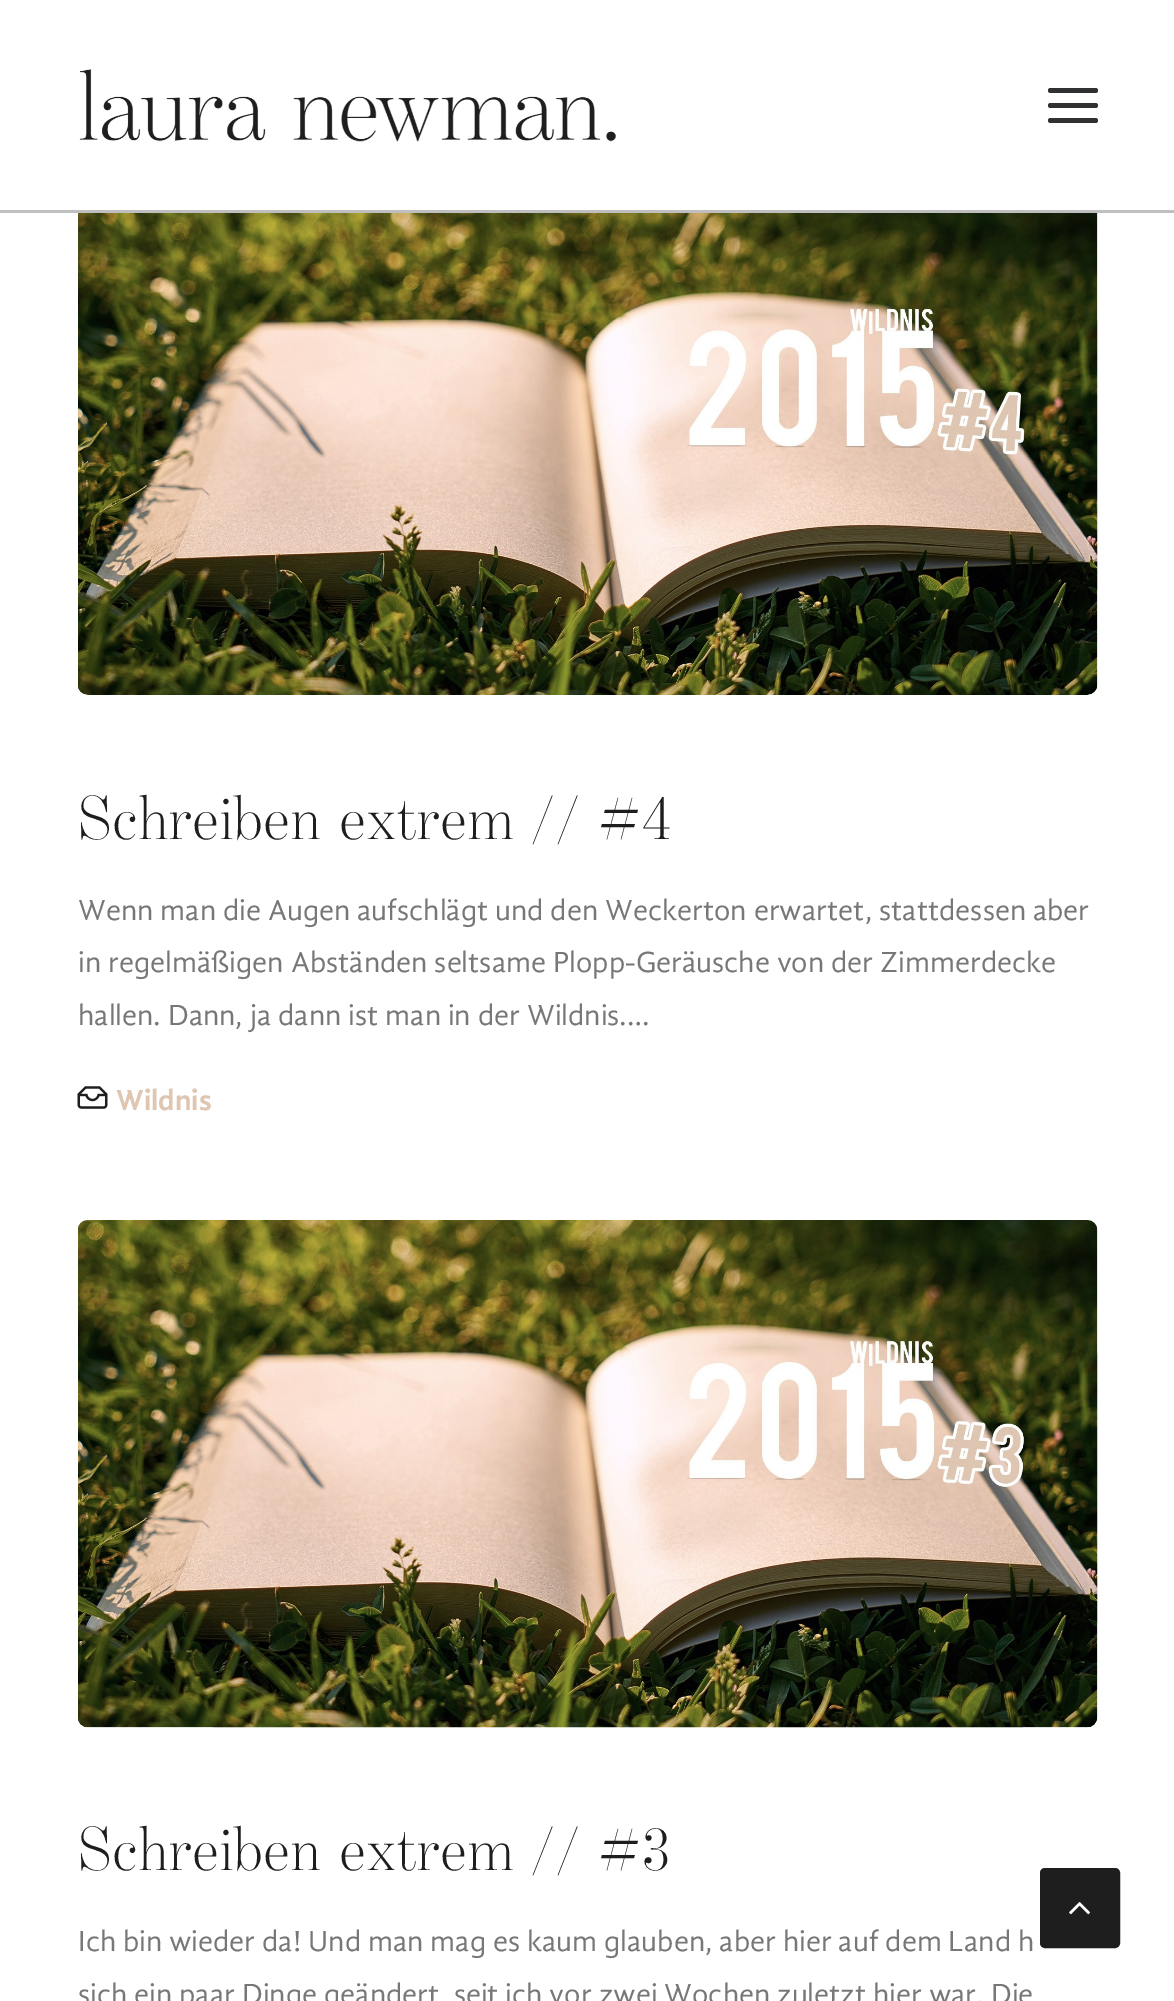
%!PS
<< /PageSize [1174 2001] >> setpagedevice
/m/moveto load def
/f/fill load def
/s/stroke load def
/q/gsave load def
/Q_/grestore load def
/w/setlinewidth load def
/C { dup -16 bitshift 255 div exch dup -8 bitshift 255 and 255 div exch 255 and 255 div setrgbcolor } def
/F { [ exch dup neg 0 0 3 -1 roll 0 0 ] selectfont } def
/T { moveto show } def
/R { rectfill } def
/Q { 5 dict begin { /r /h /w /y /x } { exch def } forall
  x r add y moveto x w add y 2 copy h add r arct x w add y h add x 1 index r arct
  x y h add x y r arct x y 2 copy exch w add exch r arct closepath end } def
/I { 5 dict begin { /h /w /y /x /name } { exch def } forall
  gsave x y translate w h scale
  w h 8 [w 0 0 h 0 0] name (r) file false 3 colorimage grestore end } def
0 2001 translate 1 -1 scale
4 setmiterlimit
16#FFFFFF C
0 0 1174 2001 R
16#BFBFC0 C
0 210 1174 3 R
(1.rgb) 79 69 537 73 I
16#303133 C
1048 103 50 5 2.5 Q f
1048 88 50 5 2.5 Q f
1048 118 50 5 2.5 Q f
(2.rgb) 78 213 1020 482 I
/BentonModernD-Light 63.25 F
16#1E1E1E C
78 839 m 1.9 0 (Schreiben extrem // #4) ashow
/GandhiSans-Regular 30 F
16#777777 C
(Wenn man die Augen aufschlägt und den Weckerton erwartet, stattdessen aber) 78 920 T
(in regelmäßigen Abständen seltsame Plopp-Geräusche von der Zimmerdecke) 78 972 T
(hallen. Dann, ja dann ist man in der Wildnis.…) 78 1025 T
(3.rgb) 77 1086 31 23 I
/GandhiSans-Bold 30 F
16#DEC6B1 C
(Wildnis) 116 1110 T
(4.rgb) 78 1220 1020 508 I
/BentonModernD-Light 63.25 F
16#1E1E1E C
78 1870 m 1.9 0 (Schreiben extrem // #3) ashow
/GandhiSans-Regular 30 F
16#777777 C
(Ich bin wieder da! Und man mag es kaum glauben, aber hier auf dem Land h) 78 1951 T
(sich ein paar Dinge geändert, seit ich vor zwei Wochen zuletzt hier war. Die) 78 2004 T
16#1E1E1E C
1041.5 1869.5 77 77 3.5 Q q f Q_
3 w
s
(5.rgb) 1069 1902 21 13 I
showpage
